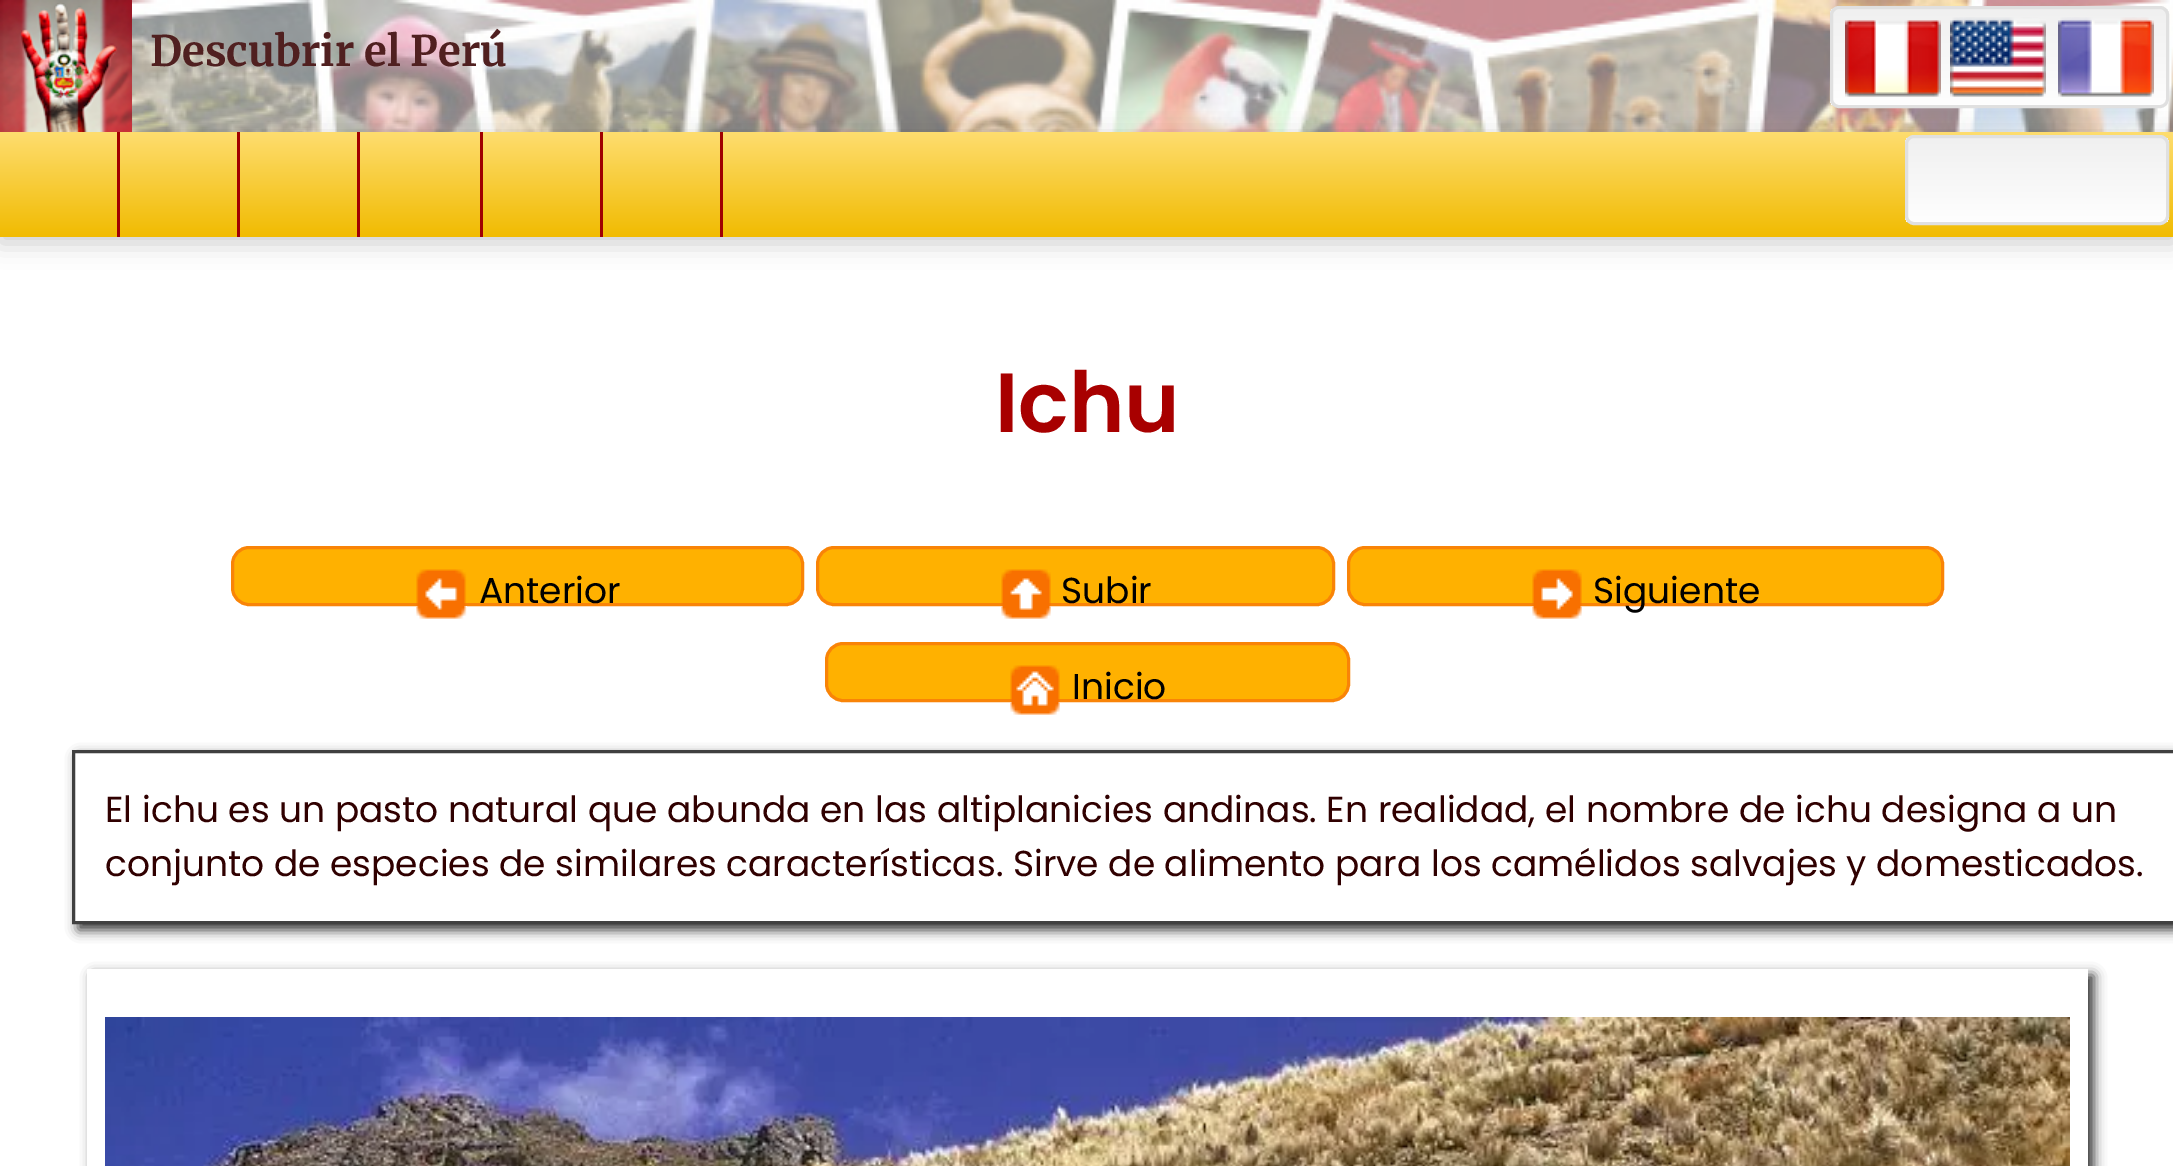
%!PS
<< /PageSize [2173 1166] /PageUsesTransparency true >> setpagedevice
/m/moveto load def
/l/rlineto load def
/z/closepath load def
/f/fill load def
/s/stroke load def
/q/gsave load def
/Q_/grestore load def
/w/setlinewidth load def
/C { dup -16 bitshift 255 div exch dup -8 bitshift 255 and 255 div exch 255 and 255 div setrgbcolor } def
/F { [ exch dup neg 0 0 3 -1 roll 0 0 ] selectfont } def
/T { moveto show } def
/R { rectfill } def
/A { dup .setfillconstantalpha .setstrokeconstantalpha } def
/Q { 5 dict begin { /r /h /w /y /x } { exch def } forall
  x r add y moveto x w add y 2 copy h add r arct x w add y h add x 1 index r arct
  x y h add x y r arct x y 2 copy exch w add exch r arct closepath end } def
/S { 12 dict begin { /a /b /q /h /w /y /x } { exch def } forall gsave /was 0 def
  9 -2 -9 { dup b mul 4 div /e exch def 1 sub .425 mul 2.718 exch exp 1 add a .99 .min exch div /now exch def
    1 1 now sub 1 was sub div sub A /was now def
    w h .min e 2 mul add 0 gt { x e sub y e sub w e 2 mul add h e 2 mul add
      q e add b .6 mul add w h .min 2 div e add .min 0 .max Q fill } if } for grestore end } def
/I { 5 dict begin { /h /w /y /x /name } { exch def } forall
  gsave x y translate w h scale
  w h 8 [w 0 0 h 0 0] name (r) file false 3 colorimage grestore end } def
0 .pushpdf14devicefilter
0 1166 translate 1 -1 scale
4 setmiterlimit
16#FFFFFF C
0 0 2173 1166 R
(2.rgb) 132 0 2041 132 I
16#000000 C
0 138 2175 105 0 12 .2 S
(1.rgb) 0 0 132 132 I
/Merriweather-Bold 42 F
16#502020 C
(Descubrir el Perú) 150 66 T
q
1830 6 339 102 9 Q clip newpath
q 1830 9 m 339 0 l 0 96 l -339 0 l z clip newpath
<< /ShadingType 2 /ColorSpace /DeviceRGB /Coords [2000 9 2000 105] /Extend [true true] /Function << /FunctionType 2 /Domain [0 1] /C0 [.941 .941 .941] /C1 [.996 .996 .996] /N 1 >> >> shfill Q_
Q_
16#E0E0E0 C
3 w
1831.5 7.5 336 99 7.5 Q s
(3.rgb) 1845 20 96 77 I
(4.rgb) 1950 17 96 80 I
(5.rgb) 2058 17 96 80 I
q 0 132 m 2173 0 l 0 105 l -2173 0 l z clip newpath
<< /ShadingType 2 /ColorSpace /DeviceRGB /Coords [1088 132 1088 237] /Extend [true true] /Function << /FunctionType 2 /Domain [0 1] /C0 [.996 .867 .435] /C1 [.945 .733 .004] /N 1 >> >> shfill Q_
16#A00000 C
117 132 3 105 R
237 132 3 105 R
357 132 3 105 R
480 132 3 105 R
600 132 3 105 R
720 132 3 105 R
q
1905 135 264 90 9 Q clip newpath
q 1905 138 m 264 0 l 0 84 l -264 0 l z clip newpath
<< /ShadingType 2 /ColorSpace /DeviceRGB /Coords [2037 138 2037 222] /Extend [true true] /Function << /FunctionType 2 /Domain [0 1] /C0 [.941 .941 .941] /C1 [.996 .996 .996] /N 1 >> >> shfill Q_
Q_
16#E0E0E0 C
1906.5 136.5 261 87 7.5 Q s
/Poppins-SemiBold 84 F
16#A80000 C
(Ichu) 995 432 T
16#FFB100 C
232.5 547.5 570 57 16.5 Q q f Q_
16#F98407 C
s
(6.rgb) 416 569 51 50 I
/Poppins-Regular 36 F
16#000000 C
(Anterior) 479 603 T
16#FFB100 C
817.5 547.5 516 57 16.5 Q q f Q_
16#F98407 C
s
(7.rgb) 1001 569 50 50 I
16#000000 C
(Subir) 1061 603 T
16#FFB100 C
1348.5 547.5 594 57 16.5 Q q f Q_
16#F98407 C
s
(8.rgb) 1532 569 50 50 I
16#000000 C
(Siguiente) 1593 603 T
16#FFB100 C
826.5 643.5 522 57 16.5 Q q f Q_
16#F98407 C
s
(9.rgb) 1010 665 50 50 I
16#000000 C
(Inicio) 1072 699 T
q
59 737 m 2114 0 l 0 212 l -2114 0 l z 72 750 m 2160 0 l 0 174 l -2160 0 l z eoclip newpath
16#333333 C
78 756 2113 174 0 6 1 S
Q_
16#404040 C
73.5 751.5 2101 171 rectstroke
16#300000 C
(El ichu es un pasto natural que abunda en las altiplanicies andinas. En realidad, el nombre de ichu designa a un) 105 822 T
(conjunto de especies de similares características. Sirve de alimento para los camélidos salvajes y domesticados.) 105 876 T
q
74 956 m 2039 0 l 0 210 l -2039 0 l z 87 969 m 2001 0 l 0 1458 l -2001 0 l z eoclip newpath
16#333333 C
93 975 2001 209 0 6 1 S
Q_
(10.rgb) 105 1017 1965 149 I
.poppdf14devicefilter showpage
